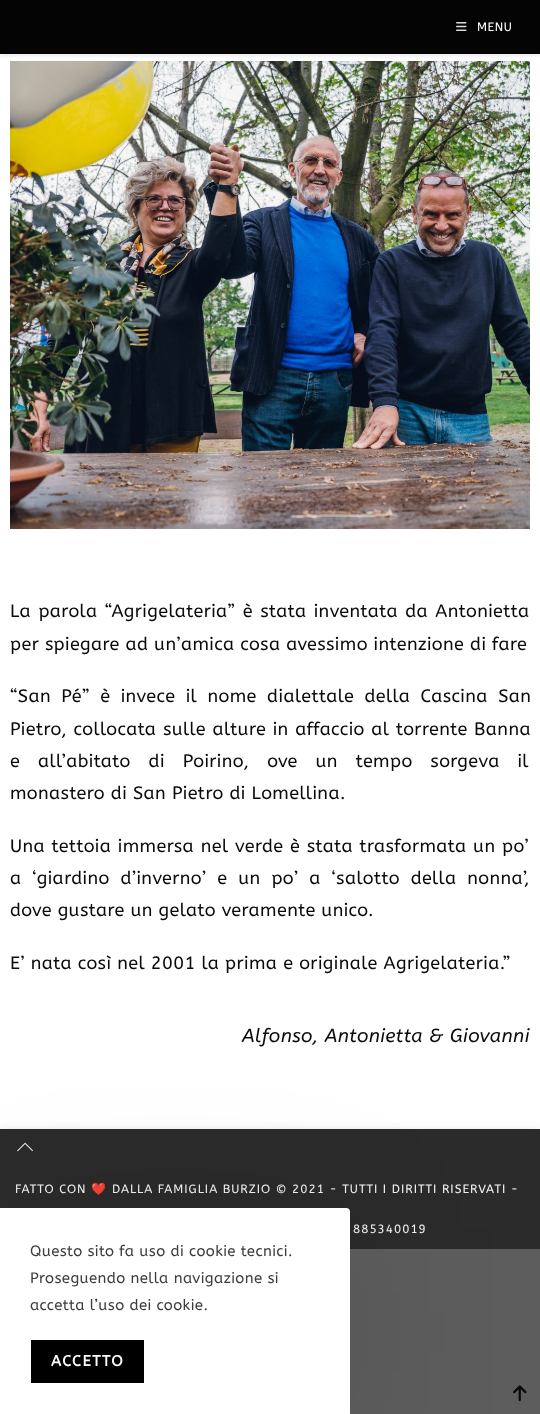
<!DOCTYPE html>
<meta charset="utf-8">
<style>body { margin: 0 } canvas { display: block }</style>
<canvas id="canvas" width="540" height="1414"></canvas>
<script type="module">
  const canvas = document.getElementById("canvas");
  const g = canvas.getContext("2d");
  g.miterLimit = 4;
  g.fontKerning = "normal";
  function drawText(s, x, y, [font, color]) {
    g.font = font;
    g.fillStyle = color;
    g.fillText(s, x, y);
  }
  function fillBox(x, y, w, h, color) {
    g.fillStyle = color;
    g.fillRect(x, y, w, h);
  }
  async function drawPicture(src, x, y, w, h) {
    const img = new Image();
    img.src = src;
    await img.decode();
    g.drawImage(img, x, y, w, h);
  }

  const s1 = ["12px ABeeZee", "#FFFFFF"];
  const s2 = ["18px ABeeZee", "#0A0A0A"];
  const s3 = ["italic 19px ABeeZee", "#0A0A0A"];
  const s4 = ["12px ABeeZee", "#F3F3F3"];
  const s5 = ["12px Noto Color Emoji", "#F3F3F3"];
  const s6 = ["15px ABeeZee", "#3C3C3C"];
  const s7 = ["bold 15px ABeeZee", "#FFFFFF"];

  fillBox(0, 0, 540, 1414, "#FFFFFF");
  fillBox(0, 0, 540, 54, "#040404");
  await drawPicture("pic2.png", 10, 61, 520, 468);
  g.save();
  g.beginPath();
  g.rect(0, 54, 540, 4);
  g.clip();
  g.fillStyle = "rgba(37, 37, 37, 0.1)";
  g.filter = "blur(2.5px)";
  g.beginPath();
  g.rect(0, 2, 540, 54);
  g.fill();
  g.filter = "none";
  g.restore();
  await drawPicture("pic1.png", 456, 22, 11, 9);
  g.letterSpacing = "0.5px";
  drawText("MENU", 477, 31, s1);
  g.letterSpacing = "0.4px";
  g.wordSpacing = "1.5px";
  drawText("La parola “Agrigelateria” è stata inventata da Antonietta", 10, 617, s2);
  g.wordSpacing = "0px";
  drawText("per spiegare ad un’amica cosa avessimo intenzione di fare", 10, 650, s2);
  g.wordSpacing = "4.5px";
  drawText("“San Pé” è invece il nome dialettale della Cascina San", 10, 702, s2);
  g.wordSpacing = "0.75px";
  drawText("Pietro, collocata sulle alture in affaccio al torrente Banna", 10, 735, s2);
  g.wordSpacing = "12px";
  drawText("e all’abitato di Poirino, ove un tempo sorgeva il", 10, 767, s2);
  g.wordSpacing = "0px";
  drawText("monastero di San Pietro di Lomellina.", 10, 799, s2);
  g.wordSpacing = "0.75px";
  drawText("Una tettoia immersa nel verde è stata trasformata un po’", 10, 852, s2);
  g.wordSpacing = "5px";
  drawText("a ‘giardino d’inverno’ e un po’ a ‘salotto della nonna’,", 10, 884, s2);
  g.wordSpacing = "0px";
  drawText("dove gustare un gelato veramente unico.", 10, 916, s2);
  drawText("E’ nata così nel 2001 la prima e originale Agrigelateria.”", 10, 969, s2);
  drawText("Alfonso, Antonietta & Giovanni", 242, 1042, s3);
  g.fillStyle = "rgba(26, 26, 26, 0.1)";
  g.filter = "blur(4px)";
  g.beginPath();
  g.rect(0, 1129, 540, 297);
  g.fill();
  g.filter = "none";
  fillBox(0, 1129, 540, 120, "#2B2B2B");
  await drawPicture("pic3.png", 17, 1142, 16, 10);
  g.letterSpacing = "1px";
  drawText("FATTO CON", 15, 1193, s4);
  drawText("❤️", 91, 1193, s5);
  drawText("DALLA FAMIGLIA BURZIO © 2021 - TUTTI I DIRITTI RISERVATI -", 112, 1193, s4);
  drawText("885340019", 353, 1233, s4);
  fillBox(350, 1249, 190, 165, "#5D5D5D");
  await drawPicture("pic4.png", 513, 1385, 14, 17);
  g.fillStyle = "rgba(0, 0, 0, 0.1)";
  g.filter = "blur(75px)";
  g.beginPath();
  g.roundRect(0, 1228, 350, 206, 4);
  g.fill();
  g.filter = "none";
  g.fillStyle = "#FFFFFF";
  g.beginPath();
  g.roundRect(0, 1208, 350, 206, [0, 4, 0, 0]);
  g.fill();
  g.letterSpacing = "0.4px";
  drawText("Questo sito fa uso di cookie tecnici.", 30, 1256, s6);
  drawText("Proseguendo nella navigazione si", 30, 1283, s6);
  drawText("accetta l’uso dei cookie.", 30, 1310, s6);
  fillBox(31, 1340, 113, 43, "#000000");
  g.letterSpacing = "1.5px";
  drawText("ACCETTO", 51, 1366, s7);
</script>
